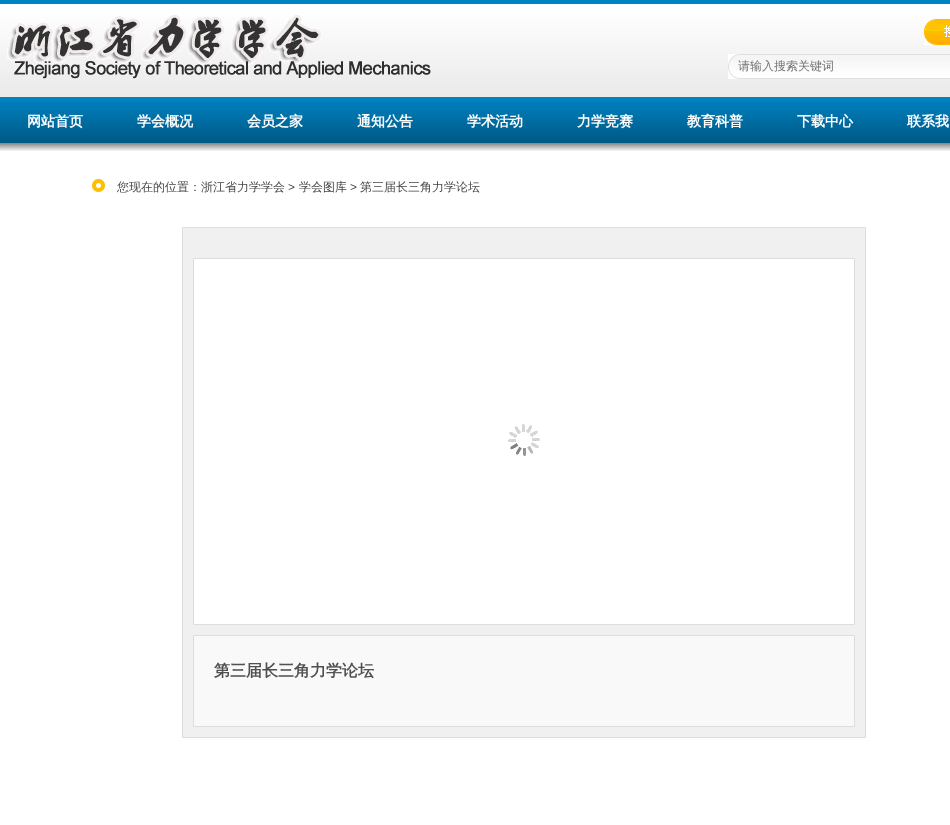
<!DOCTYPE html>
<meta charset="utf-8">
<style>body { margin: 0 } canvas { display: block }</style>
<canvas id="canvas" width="950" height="825"></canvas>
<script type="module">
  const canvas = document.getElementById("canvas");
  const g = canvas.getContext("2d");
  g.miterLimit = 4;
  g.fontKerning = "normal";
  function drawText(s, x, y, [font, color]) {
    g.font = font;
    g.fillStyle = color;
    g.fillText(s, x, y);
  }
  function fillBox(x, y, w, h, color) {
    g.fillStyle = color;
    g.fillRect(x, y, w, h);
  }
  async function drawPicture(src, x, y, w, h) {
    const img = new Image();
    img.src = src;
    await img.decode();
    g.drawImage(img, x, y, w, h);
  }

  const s1 = ["500 12px WenQuanYi Zen Hei", "#747474"];
  const s2 = ["bold 14px WenQuanYi Zen Hei", "#FFFFFF"];
  const s3 = ["500 12px WenQuanYi Zen Hei", "#464646"];
  const s4 = ["12px Liberation Sans", "#464646"];
  const s5 = ["bold 16px WenQuanYi Zen Hei", "#505050"];

  fillBox(0, 0, 950, 825, "#FFFFFF");
  await drawPicture("pic1.png", 0, 0, 950, 151);
  await drawPicture("pic2.png", 7, 15, 424, 64);
  await drawPicture("pic3.png", 924, 19, 26, 26);
  await drawPicture("pic4.png", 728, 54, 222, 25);
  drawText("请输入搜索关键词", 738, 70, s1);
  drawText("网站首页", 27, 126, s2);
  drawText("学会概况", 137, 126, s2);
  drawText("会员之家", 247, 126, s2);
  drawText("通知公告", 357, 126, s2);
  drawText("学术活动", 467, 126, s2);
  drawText("力学竞赛", 577, 126, s2);
  drawText("教育科普", 687, 126, s2);
  drawText("下载中心", 797, 126, s2);
  drawText("联系我", 907, 126, s2);
  await drawPicture("pic5.png", 92, 179, 13, 13);
  drawText("您现在的位置：浙江省力学学会", 117, 191, s3);
  drawText(">", 288, 191, s4);
  drawText("学会图库", 299, 191, s3);
  drawText(">", 350, 191, s4);
  drawText("第三届长三角力学论坛", 360, 191, s3);
  g.fillStyle = "#F0F0F0";
  g.beginPath();
  g.rect(182.5, 227.5, 683, 510);
  g.fill();
  g.strokeStyle = "#DDDDDD";
  g.stroke();
  g.fillStyle = "#FFFFFF";
  g.beginPath();
  g.rect(193.5, 258.5, 661, 366);
  g.fill();
  g.stroke();
  await drawPicture("pic6.png", 508, 424, 32, 32);
  g.fillStyle = "#F9F9F9";
  g.beginPath();
  g.rect(193.5, 635.5, 661, 91);
  g.fill();
  g.stroke();
  drawText("第三届长三角力学论坛", 214, 676, s5);
</script>
